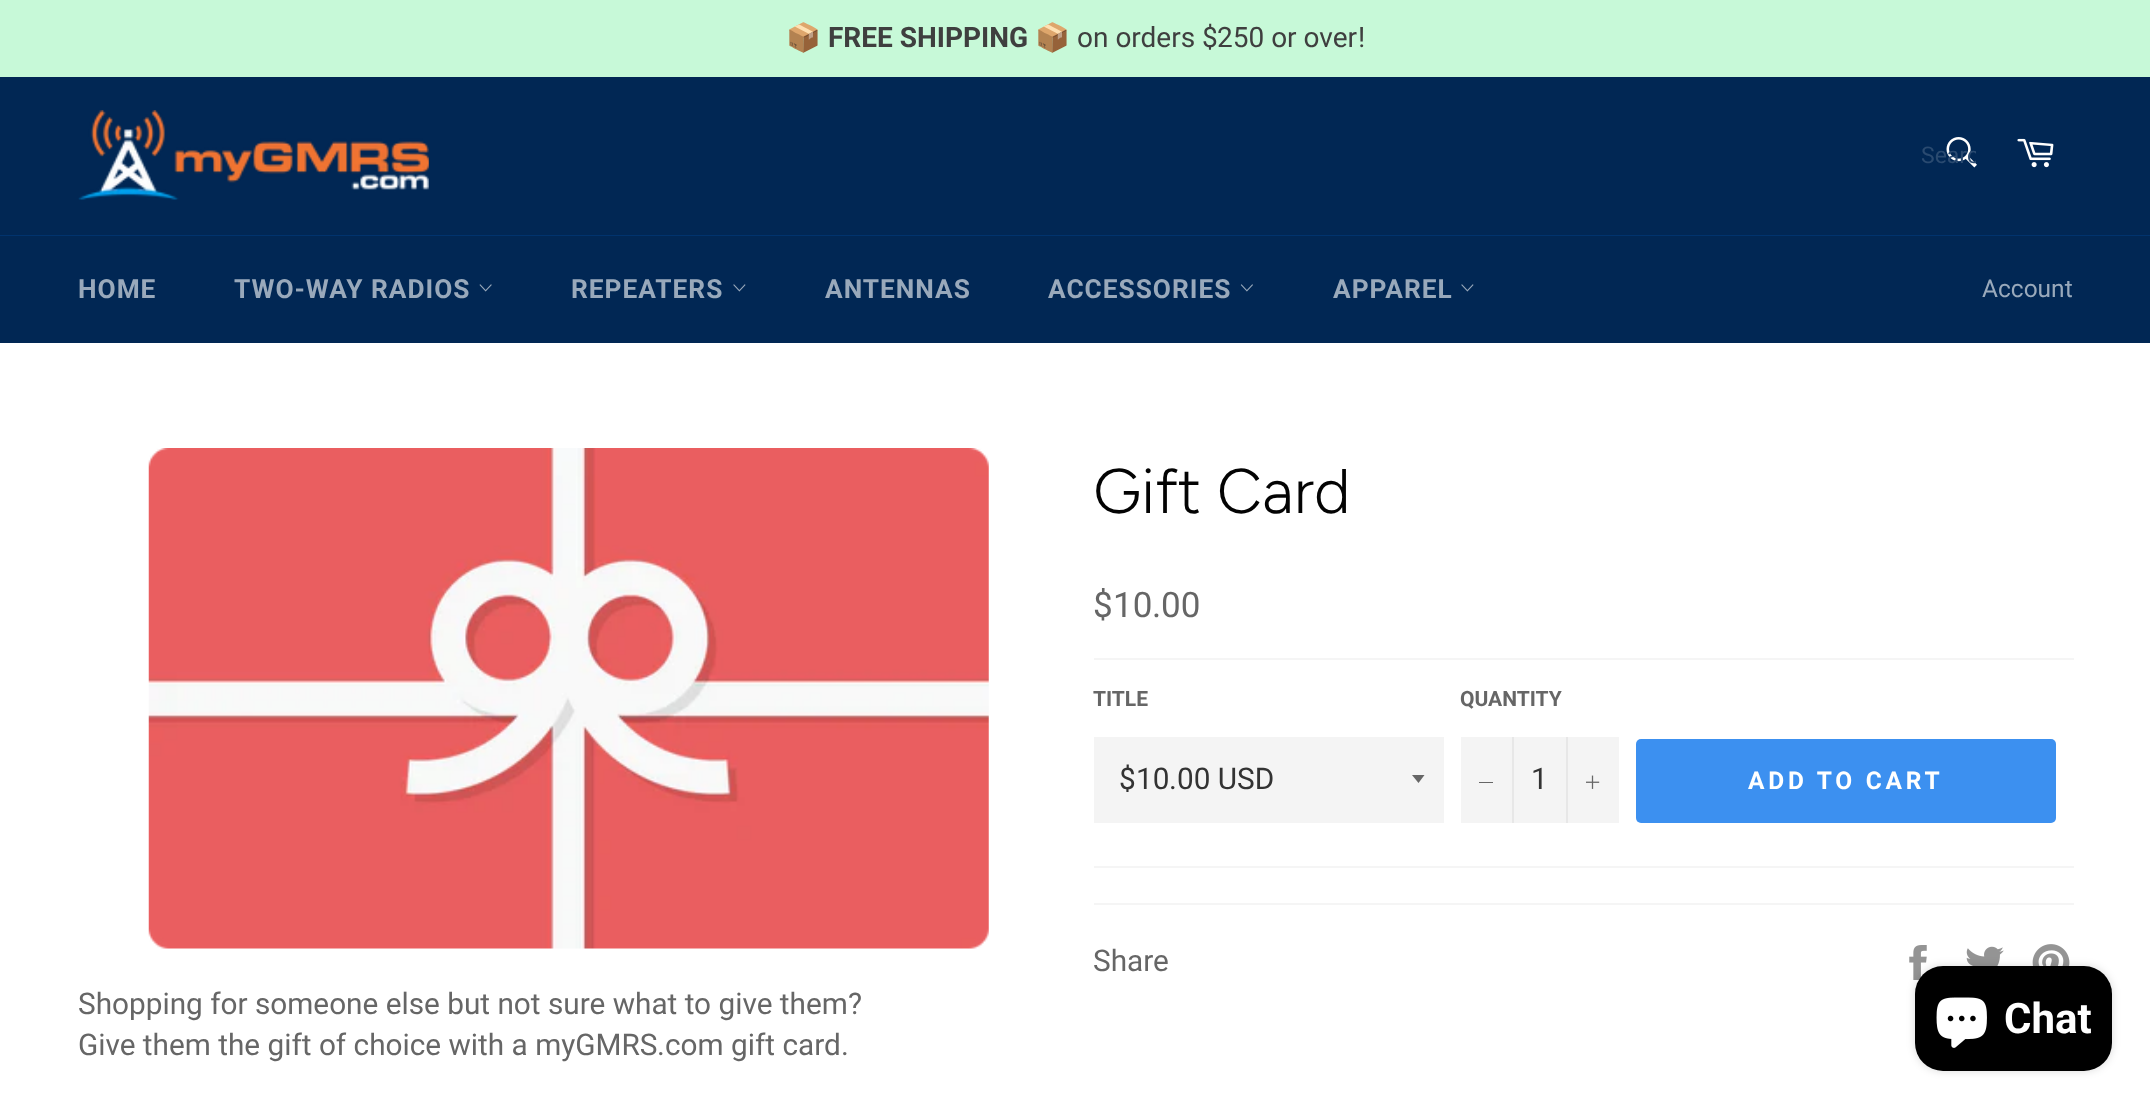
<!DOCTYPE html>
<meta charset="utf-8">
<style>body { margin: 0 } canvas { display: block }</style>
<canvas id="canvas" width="2150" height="1107"></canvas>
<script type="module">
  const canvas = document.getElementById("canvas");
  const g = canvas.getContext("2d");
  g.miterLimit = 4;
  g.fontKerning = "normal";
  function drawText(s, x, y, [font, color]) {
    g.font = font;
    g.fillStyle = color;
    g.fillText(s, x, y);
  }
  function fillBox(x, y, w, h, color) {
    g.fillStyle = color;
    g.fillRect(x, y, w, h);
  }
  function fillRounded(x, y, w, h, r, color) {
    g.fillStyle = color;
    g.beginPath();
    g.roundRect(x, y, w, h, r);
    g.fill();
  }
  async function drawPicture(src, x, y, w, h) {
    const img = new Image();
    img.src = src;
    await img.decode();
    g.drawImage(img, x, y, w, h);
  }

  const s1 = ["28px Noto Color Emoji", "#3F3F3F"];
  const s2 = ["bold 28px Roboto", "#3F3F3F"];
  const s3 = ["28px 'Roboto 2'", "#3F3F3F"];
  const s4 = ["28px Roboto", "#3F3F3F"];
  const s5 = ["23px 'Roboto 2'", "#2A4A70"];
  const s6 = ["bold 26.25px Roboto", "#99A9BB"];
  const s7 = ["24.5px 'Roboto 2'", "#99A9BB"];
  const s8 = ["300 63px Figtree", "#030303"];
  const s9 = ["35px Roboto", "#666666"];
  const s10 = ["35px 'Roboto 2'", "#666666"];
  const s11 = ["bold 21px Roboto", "#666666"];
  const s12 = ["29.75px Roboto", "#333333"];
  const s13 = ["29.75px 'Roboto 2'", "#333333"];
  const s14 = ["bold 24.5px Roboto", "#FFFFFF"];
  const s15 = ["29.75px 'Roboto 2'", "#666666"];
  const s16 = ["29.75px Roboto", "#666666"];
  const s17 = ["bold 42px Roboto", "#FFFFFF"];

  fillBox(0, 0, 2150, 1107, "#012754");
  fillBox(0, 0, 2150, 77, "#C7F9D8");
  drawText("📦", 786, 47, s1);
  drawText("FREE SHIPPING", 828, 47, s2);
  drawText("📦", 1035, 47, s1);
  drawText("on orders", 1077, 47, s3);
  drawText("$", 1202, 47, s4);
  drawText("250 or over", 1217, 47, s3);
  drawText("!", 1358, 47, s4);
  await drawPicture("pic1.png", 78, 110, 351, 90);
  await drawPicture("pic2.png", 1946, 137, 31, 31);
  g.save();
  g.beginPath();
  g.rect(1920, 142, 56, 26);
  g.clip();
  drawText("Searc", 1921, 163, s5);
  g.restore();
  await drawPicture("pic3.png", 2017, 138, 37, 30);
  fillBox(0, 235, 2150, 1, "#01336D");
  g.letterSpacing = "1px";
  drawText("HOME", 78, 298, s6);
  drawText("TWO-WAY RADIOS", 234, 298, s6);
  await drawPicture("pic4.png", 479, 284, 13, 8);
  drawText("REPEATERS", 571, 298, s6);
  await drawPicture("pic5.png", 733, 284, 13, 8);
  drawText("ANTENNAS", 825, 298, s6);
  drawText("ACCESSORIES", 1048, 298, s6);
  await drawPicture("pic6.png", 1240, 284, 13, 8);
  drawText("APPAREL", 1333, 298, s6);
  await drawPicture("pic5.png", 1461, 284, 13, 8);
  g.letterSpacing = "0px";
  drawText("Account", 1982, 297, s7);
  fillBox(0, 343, 2150, 764, "#FFFFFF");
  await drawPicture("pic7.png", 148, 448, 841, 501);
  drawText("Gift Card", 1093, 513, s8);
  drawText("$", 1093, 617, s9);
  drawText("10", 1113, 617, s10);
  drawText(".", 1152, 617, s9);
  drawText("00", 1161, 617, s10);
  fillBox(1094, 658, 980, 2, "#F5F5F5");
  drawText("TITLE", 1093, 706, s11);
  fillBox(1094, 737, 350, 86, "#F4F4F4");
  g.fillStyle = "#666666";
  g.beginPath();
  g.moveTo(1412, 775);
  g.lineTo(1418.5, 783);
  g.lineTo(1424.5, 775);
  g.closePath();
  g.fill();
  drawText("$", 1119, 789, s12);
  drawText("10", 1136, 789, s13);
  drawText(".", 1169, 789, s12);
  drawText("00 USD", 1177, 789, s13);
  drawText("QUANTITY", 1460, 706, s11);
  fillBox(1461, 737, 158, 86, "#F4F4F4");
  fillBox(1512, 737, 2, 86, "#E7E7E7");
  fillBox(1479, 782, 14, 1, "#666666");
  drawText("1", 1531, 789, s13);
  fillBox(1566, 737, 2, 86, "#E7E7E7");
  await drawPicture("pic8.png", 1586, 775, 14, 14);
  fillRounded(1636, 739, 420, 84, 5, "#3C90F0");
  g.letterSpacing = "3.75px";
  drawText("ADD TO CART", 1748, 789, s14);
  fillBox(1094, 866, 980, 2, "#F5F5F5");
  fillBox(1094, 903, 980, 2, "#F5F5F5");
  g.letterSpacing = "0px";
  drawText("Share", 1093, 971, s15);
  await drawPicture("pic9.png", 1909, 945, 18, 35);
  await drawPicture("pic10.png", 1966, 946, 38, 20);
  await drawPicture("pic11.png", 2032, 944, 38, 22);
  drawText("Shopping for someone else but not sure what to give them", 78, 1014, s15);
  drawText("?", 848, 1014, s16);
  drawText("Give them the gift of choice with a myGMRS", 78, 1055, s15);
  drawText(".", 657, 1055, s16);
  drawText("com gift card", 665, 1055, s15);
  drawText(".", 841, 1055, s16);
  g.fillStyle = "rgba(0, 0, 0, 0.15)";
  g.filter = "blur(4.5px)";
  g.beginPath();
  g.roundRect(1915, 966, 197, 105, 28);
  g.fill();
  g.filter = "none";
  fillRounded(1915, 966, 197, 105, 28, "#000000");
  await drawPicture("pic12.png", 1936, 997, 51, 51);
  drawText("Chat", 2004, 1033, s17);
</script>
